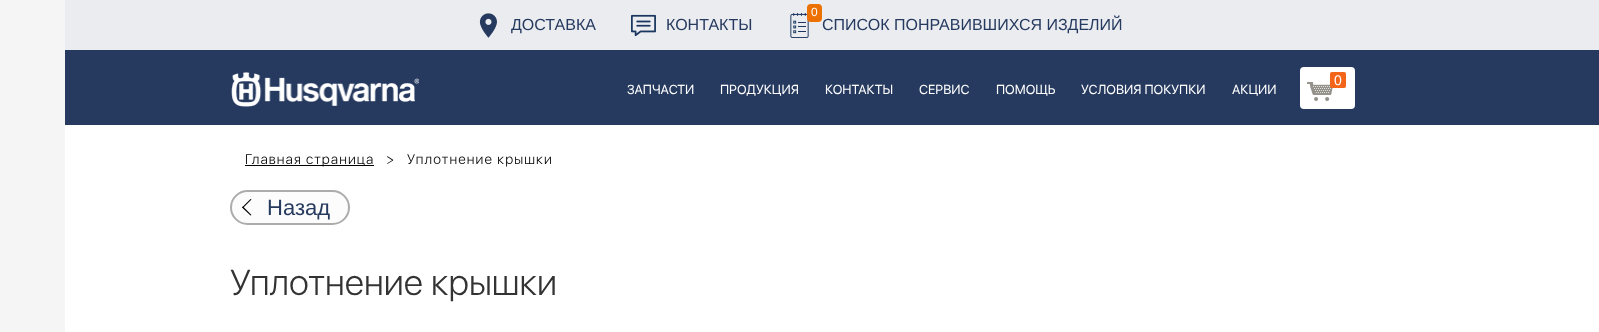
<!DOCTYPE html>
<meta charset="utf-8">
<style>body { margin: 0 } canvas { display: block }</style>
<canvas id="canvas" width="1599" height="332"></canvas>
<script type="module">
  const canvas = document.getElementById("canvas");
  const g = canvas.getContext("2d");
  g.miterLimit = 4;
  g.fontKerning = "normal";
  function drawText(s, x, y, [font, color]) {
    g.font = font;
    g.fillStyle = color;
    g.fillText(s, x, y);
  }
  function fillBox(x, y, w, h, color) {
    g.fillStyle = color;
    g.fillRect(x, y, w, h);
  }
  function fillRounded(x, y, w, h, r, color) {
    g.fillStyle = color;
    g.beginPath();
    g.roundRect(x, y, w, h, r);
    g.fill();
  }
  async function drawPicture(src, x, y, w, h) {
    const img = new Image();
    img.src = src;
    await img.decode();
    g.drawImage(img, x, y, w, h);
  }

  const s1 = ["16px Liberation Sans", "#263A5F"];
  const s2 = ["12px Liberation Sans", "#FFFFFF"];
  const s3 = ["14px Liberation Sans", "#FFFFFF"];
  const s4 = ["13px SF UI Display", "#FFFFFF"];
  const s5 = ["300 14px SF UI Display", "#000000"];
  const s6 = ["22px Liberation Sans", "#263A5F"];
  const s7 = ["300 36px SF UI Display", "#333333"];

  fillBox(0, 0, 1599, 332, "#FFFFFF");
  fillBox(0, 0, 65, 332, "#F5F5F5");
  fillBox(65, 0, 1534, 50, "#EAECF0");
  await drawPicture("pic1.png", 479, 13, 18, 25);
  drawText("ДОСТАВКА", 511, 30, s1);
  await drawPicture("pic2.png", 631, 14, 25, 23);
  drawText("КОНТАКТЫ", 666, 30, s1);
  await drawPicture("pic3.png", 790, 13, 19, 25);
  fillRounded(807, 4, 15, 18, 4, "#ED7102");
  drawText("0", 811, 16, s2);
  drawText("СПИСОК ПОНРАВИВШИХСЯ ИЗДЕЛИЙ", 822, 30, s1);
  fillBox(65, 50, 1534, 75, "#263A5F");
  await drawPicture("pic4.png", 231, 72, 188, 35);
  fillRounded(1300, 67, 55, 42, 4, "#FFFFFF");
  await drawPicture("pic5.png", 1307, 82, 26, 19);
  fillRounded(1330, 72, 16, 16, 2, "#F4651A");
  drawText("0", 1334, 85, s3);
  drawText("ЗАПЧАСТИ", 627, 94, s4);
  drawText("ПРОДУКЦИЯ", 720, 94, s4);
  drawText("КОНТАКТЫ", 825, 94, s4);
  drawText("СЕРВИС", 919, 94, s4);
  drawText("ПОМОЩЬ", 996, 94, s4);
  drawText("УСЛОВИЯ ПОКУПКИ", 1081, 94, s4);
  drawText("АКЦИИ", 1232, 94, s4);
  fillBox(245, 165, 129, 1, "#000000");
  g.letterSpacing = "1.1px";
  drawText("Главная страница", 245, 164, s5);
  drawText(">", 386, 164, s5);
  drawText("Уплотнение крышки", 407, 164, s5);
  g.fillStyle = "#FCFCFC";
  g.beginPath();
  g.roundRect(231, 191, 118, 33, 16.5);
  g.fill();
  g.strokeStyle = "#ACACAC";
  g.lineWidth = 2;
  g.stroke();
  g.fillStyle = "#000000";
  g.beginPath();
  g.moveTo(242, 207.5);
  g.lineTo(250.5, 199);
  g.lineTo(251.5, 199.5);
  g.lineTo(243, 208);
  g.closePath();
  g.fill();
  g.beginPath();
  g.moveTo(242, 207.5);
  g.lineTo(243, 206.5);
  g.lineTo(251.5, 215);
  g.lineTo(250.5, 215.5);
  g.closePath();
  g.fill();
  g.letterSpacing = "0px";
  drawText("Назад", 267, 215, s6);
  drawText("Уплотнение крышки", 230, 295, s7);
</script>
